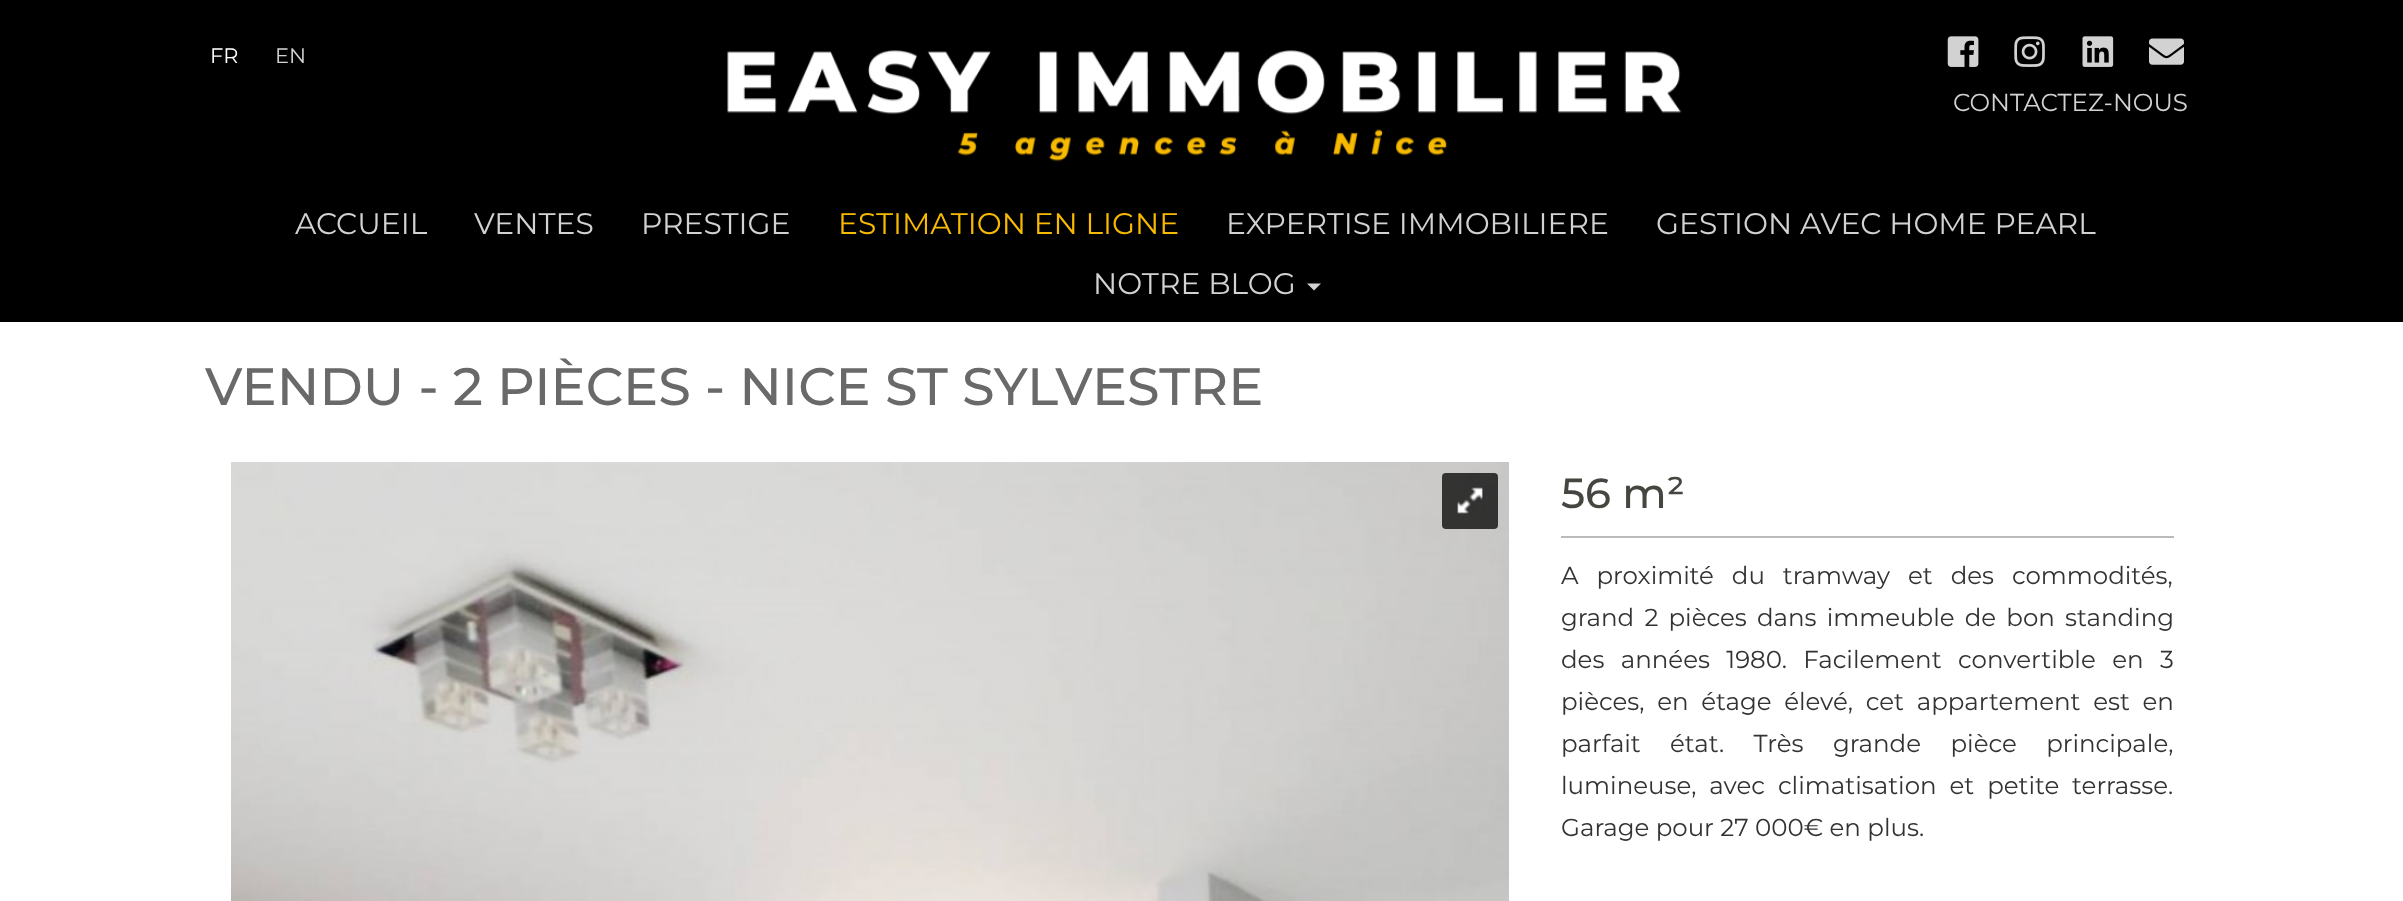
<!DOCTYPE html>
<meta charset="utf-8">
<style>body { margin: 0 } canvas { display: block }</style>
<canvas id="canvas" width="2403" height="901"></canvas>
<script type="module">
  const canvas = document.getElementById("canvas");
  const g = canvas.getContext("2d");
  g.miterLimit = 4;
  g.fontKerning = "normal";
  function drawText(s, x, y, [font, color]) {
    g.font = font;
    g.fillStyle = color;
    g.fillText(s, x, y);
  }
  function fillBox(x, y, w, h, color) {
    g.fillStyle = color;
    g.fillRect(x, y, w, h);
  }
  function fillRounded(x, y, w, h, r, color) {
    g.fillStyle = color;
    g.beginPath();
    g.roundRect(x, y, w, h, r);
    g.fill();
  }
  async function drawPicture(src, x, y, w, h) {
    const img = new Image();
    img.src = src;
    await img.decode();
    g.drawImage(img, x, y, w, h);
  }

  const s1 = ["21px Montserrat", "#FFFFFF"];
  const s2 = ["21px Montserrat", "#D2D2D2"];
  const s3 = ["24.5px Montserrat", "#D2D2D2"];
  const s4 = ["29.75px Montserrat", "#D2D2D2"];
  const s5 = ["29.75px Montserrat", "#F8BA00"];
  const s6 = ["500 52.5px Montserrat", "#696969"];
  const s7 = ["500 42px Montserrat", "#464640"];
  const s8 = ["24.5px Montserrat", "#333333"];

  fillBox(0, 0, 2403, 901, "#FFFFFF");
  fillBox(0, 0, 2403, 322, "#000000");
  drawText("FR", 210, 63, s1);
  drawText("EN", 275, 63, s2);
  await drawPicture("pic1.png", 727, 50, 955, 112);
  await drawPicture("pic2.png", 1947, 36, 32, 31);
  await drawPicture("pic3.png", 2014, 36, 31, 31);
  await drawPicture("pic4.png", 2082, 36, 32, 31);
  await drawPicture("pic5.png", 2149, 38, 35, 27);
  drawText("CONTACTEZ-NOUS", 1953, 111, s3);
  drawText("ACCUEIL", 295, 234, s4);
  drawText("VENTES", 474, 234, s4);
  drawText("PRESTIGE", 641, 234, s4);
  drawText("ESTIMATION EN LIGNE", 838, 234, s5);
  drawText("EXPERTISE IMMOBILIERE", 1226, 234, s4);
  drawText("GESTION AVEC HOME PEARL", 1656, 234, s4);
  drawText("NOTRE BLOG", 1093, 294, s4);
  g.beginPath();
  g.moveTo(1307, 283.5);
  g.lineTo(1321, 283.5);
  g.lineTo(1314, 290.5);
  g.closePath();
  g.fill();
  drawText("VENDU - 2 PIÈCES - NICE ST SYLVESTRE", 205, 405, s6);
  await drawPicture("pic6.png", 231, 462, 1278, 439);
  fillRounded(1442, 473, 56, 56, 4, "rgba(0, 0, 0, 0.75)");
  await drawPicture("pic7.png", 1457, 487, 27, 27);
  fillBox(1561, 536, 613, 2, "#BBBBBB");
  drawText("56 m²", 1561, 508, s7);
  g.wordSpacing = "11.5px";
  drawText("A proximité du tramway et des commodités,", 1561, 584, s8);
  g.wordSpacing = "3.75px";
  drawText("grand 2 pièces dans immeuble de bon standing", 1561, 626, s8);
  g.wordSpacing = "10px";
  drawText("des années 1980. Facilement convertible en 3", 1561, 668, s8);
  g.wordSpacing = "6.25px";
  drawText("pièces, en étage élevé, cet appartement est en", 1561, 710, s8);
  g.wordSpacing = "23px";
  drawText("parfait état. Très grande pièce principale,", 1561, 752, s8);
  g.wordSpacing = "6.5px";
  drawText("lumineuse, avec climatisation et petite terrasse.", 1561, 794, s8);
  g.wordSpacing = "0px";
  drawText("Garage pour 27 000€ en plus.", 1561, 836, s8);
</script>
